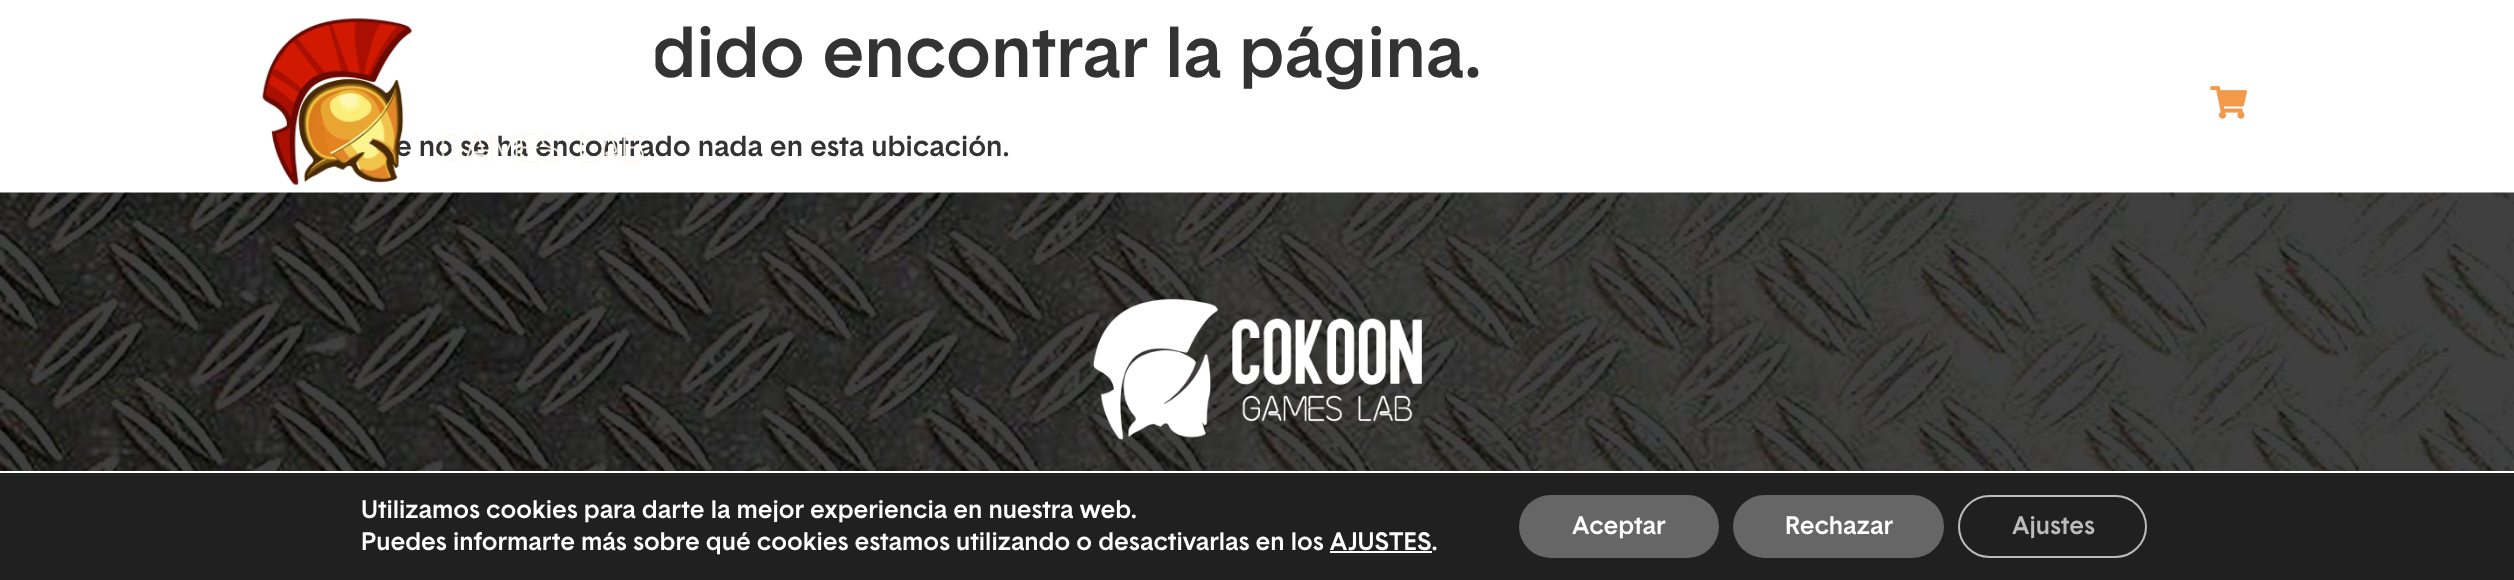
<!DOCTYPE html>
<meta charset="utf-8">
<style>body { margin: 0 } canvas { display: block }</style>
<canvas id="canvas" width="2514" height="580"></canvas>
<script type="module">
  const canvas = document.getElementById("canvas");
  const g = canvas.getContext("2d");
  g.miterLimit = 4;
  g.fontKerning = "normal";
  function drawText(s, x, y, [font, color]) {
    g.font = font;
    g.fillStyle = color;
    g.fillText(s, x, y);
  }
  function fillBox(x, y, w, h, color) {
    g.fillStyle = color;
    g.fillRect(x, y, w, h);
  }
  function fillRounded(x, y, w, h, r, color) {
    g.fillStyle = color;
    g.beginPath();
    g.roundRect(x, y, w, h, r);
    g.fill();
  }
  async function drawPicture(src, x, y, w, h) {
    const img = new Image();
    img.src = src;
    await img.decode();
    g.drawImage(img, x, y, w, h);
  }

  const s1 = ["500 70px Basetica", "#333333"];
  const s2 = ["500 28px Basetica", "#333333"];
  const s3 = ["500 24.5px Basetica", "#FFFFFF"];
  const s4 = ["500 24.5px Basetica", "#BCBCBC"];

  fillBox(0, 0, 2514, 580, "#FFFFFF");
  drawText("dido encontrar la página.", 651, 77, s1);
  drawText("e no se ha encontrado nada en esta ubicación.", 395, 156, s2);
  await drawPicture("pic1.png", 262, 18, 394, 168);
  await drawPicture("pic2.png", 2210, 86, 37, 33);
  await drawPicture("pic3.png", 0, 192, 2514, 279);
  await drawPicture("pic4.png", 1093, 299, 329, 141);
  fillBox(0, 473, 2514, 107, "#202020");
  drawText("Utilizamos cookies para darte la mejor experiencia en nuestra web.", 361, 518, s3);
  drawText("Puedes informarte más sobre qué cookies estamos utilizando o desactivarlas en los AJUSTES.", 361, 550, s3);
  fillBox(1330, 551, 102, 2, "#FFFFFF");
  fillRounded(1519, 495, 200, 63, 31.5, "#666666");
  drawText("Aceptar", 1572, 534, s3);
  fillRounded(1733, 495, 211, 63, 31.5, "#666666");
  drawText("Rechazar", 1785, 534, s3);
  g.beginPath();
  g.roundRect(1959, 496, 187, 61, 30.5);
  g.strokeStyle = "#BCBCBC";
  g.lineWidth = 2;
  g.stroke();
  drawText("Ajustes", 2012, 534, s4);
</script>
